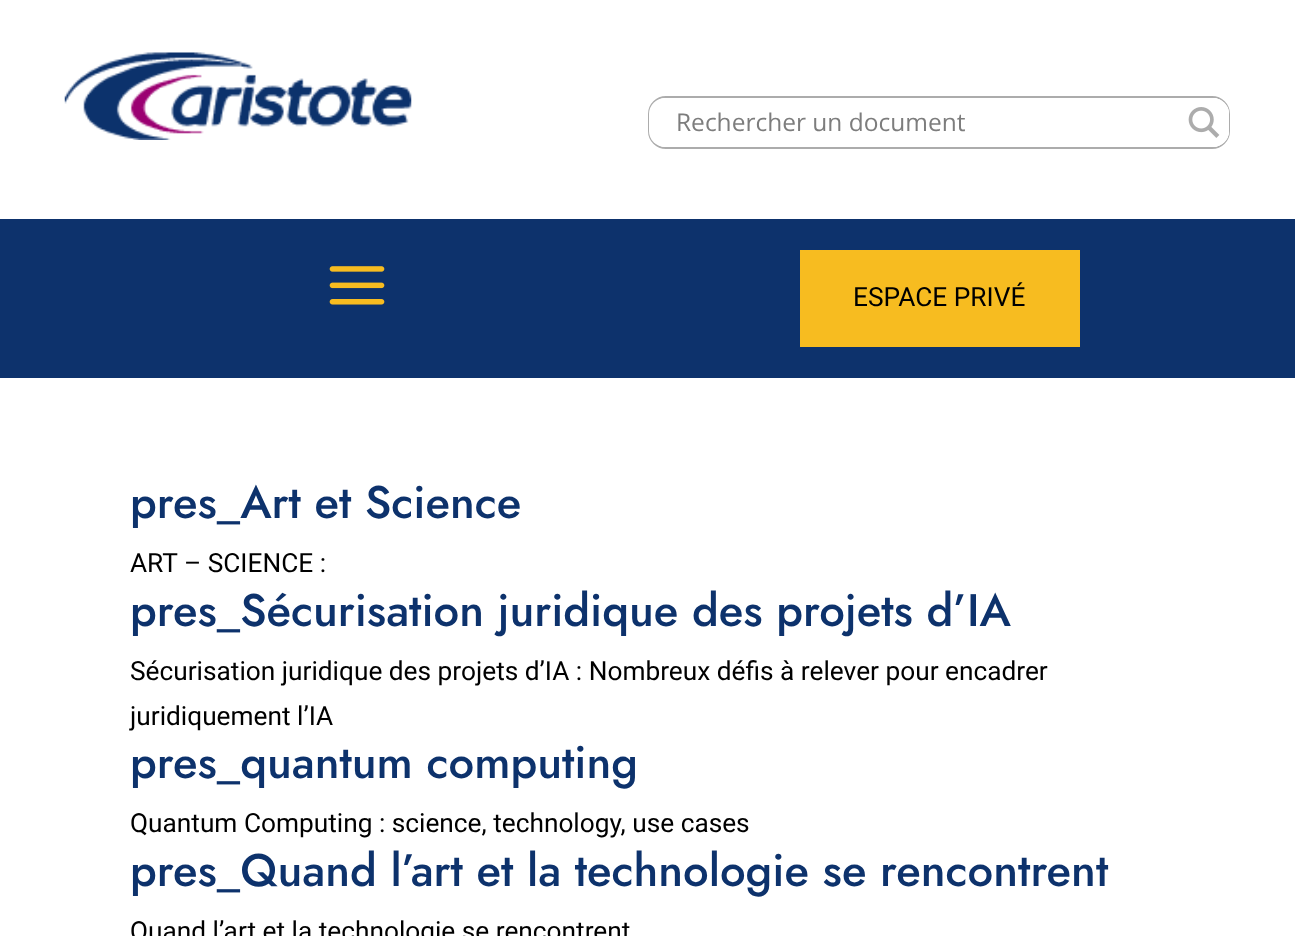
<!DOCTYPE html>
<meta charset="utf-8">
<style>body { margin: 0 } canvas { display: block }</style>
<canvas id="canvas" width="1295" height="936"></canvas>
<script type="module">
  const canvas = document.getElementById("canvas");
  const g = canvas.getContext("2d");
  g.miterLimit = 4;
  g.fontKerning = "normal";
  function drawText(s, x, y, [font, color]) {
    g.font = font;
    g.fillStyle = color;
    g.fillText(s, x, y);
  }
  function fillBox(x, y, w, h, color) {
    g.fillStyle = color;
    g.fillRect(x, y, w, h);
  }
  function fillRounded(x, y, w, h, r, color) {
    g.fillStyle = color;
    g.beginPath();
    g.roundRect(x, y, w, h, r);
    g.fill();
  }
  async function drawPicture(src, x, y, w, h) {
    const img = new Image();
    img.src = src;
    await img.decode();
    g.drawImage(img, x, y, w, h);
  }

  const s1 = ["24.5px Open Sans", "#7D7D7D"];
  const s2 = ["26.25px Roboto", "#000000"];
  const s3 = ["500 45.5px Jost", "#0D326C"];

  fillBox(0, 0, 1295, 936, "#FFFFFF");
  await drawPicture("pic1.png", 64, 52, 348, 88);
  g.beginPath();
  g.roundRect(649, 97, 580, 51, 17);
  g.strokeStyle = "#ACACAC";
  g.lineWidth = 2;
  g.stroke();
  fillRounded(649, 98, 580, 49, 16, "#FFFFFF");
  drawText("Rechercher un document", 676, 131, s1);
  g.save();
  g.beginPath();
  g.rect(1180, 98, 49, 49);
  g.clip();
  g.fillStyle = "rgba(255, 255, 255, 0.64)";
  g.beginPath();
  g.moveTo(1178, 100);
  g.lineTo(1178, 147);
  g.lineTo(1006, 147);
  g.lineTo(1006, 98);
  g.lineTo(1213, 98);
  g.bezierCurveTo(1216, 98, 1218, 99, 1221, 100);
  g.closePath();
  g.moveTo(1227, 139);
  g.bezierCurveTo(1230, 134, 1229, 128, 1229, 122);
  g.bezierCurveTo(1229, 117, 1230, 111, 1227, 106);
  g.closePath();
  g.fill("evenodd");
  g.restore();
  g.fillStyle = "#FFFFFF";
  g.beginPath();
  g.roundRect(1180, 98, 49, 49, [0, 16, 16, 0]);
  g.fill();
  await drawPicture("pic2.png", 1188, 107, 32, 31);
  fillBox(0, 219, 1295, 159, "#0D326C");
  await drawPicture("pic3.png", 329, 266, 56, 39);
  fillBox(800, 250, 280, 97, "#F7BC20");
  drawText("ESPACE PRIVÉ", 853, 306, s2);
  drawText("pres_Art et Science", 130, 518, s3);
  drawText("ART – SCIENCE :", 130, 572, s2);
  drawText("pres_Sécurisation juridique des projets d’IA", 130, 626, s3);
  drawText("Sécurisation juridique des projets d’IA : Nombreux défis à relever pour encadrer", 130, 680, s2);
  drawText("juridiquement l’IA", 130, 725, s2);
  drawText("pres_quantum computing", 130, 778, s3);
  drawText("Quantum Computing : science, technology, use cases", 130, 832, s2);
  drawText("pres_Quand l’art et la technologie se rencontrent", 130, 886, s3);
  drawText("Quand l’art et la technologie se rencontrent", 130, 940, s2);
</script>
